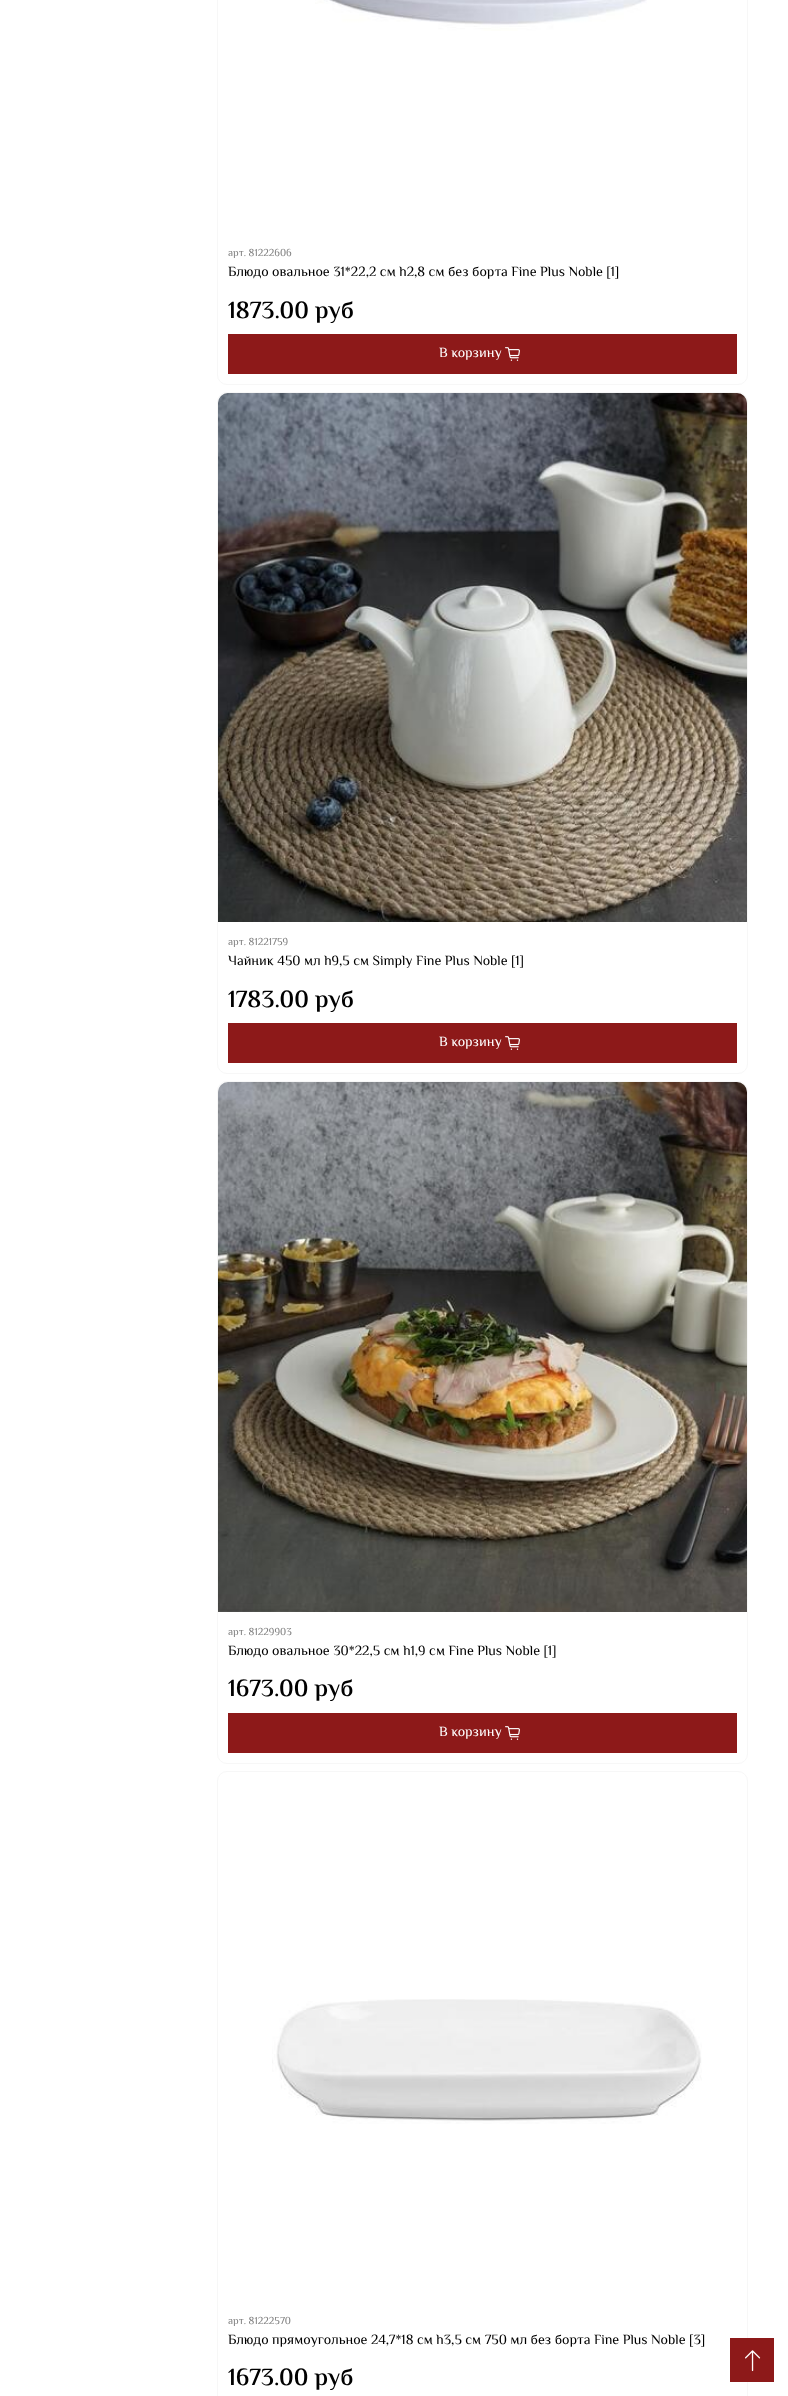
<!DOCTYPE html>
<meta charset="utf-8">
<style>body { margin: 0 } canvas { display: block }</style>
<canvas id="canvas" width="788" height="2396"></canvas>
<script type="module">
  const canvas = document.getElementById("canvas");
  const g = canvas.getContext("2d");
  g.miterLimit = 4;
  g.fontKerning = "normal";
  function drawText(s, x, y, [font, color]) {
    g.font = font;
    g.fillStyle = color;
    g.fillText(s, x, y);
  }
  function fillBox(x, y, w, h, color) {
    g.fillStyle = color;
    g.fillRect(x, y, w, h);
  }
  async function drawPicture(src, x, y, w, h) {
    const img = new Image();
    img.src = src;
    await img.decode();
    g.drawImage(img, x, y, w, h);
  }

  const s1 = ["10.5px El Messiri", "#808080"];
  const s2 = ["14px El Messiri", "#000000"];
  const s3 = ["600 24.5px El Messiri", "#000000"];
  const s4 = ["14px El Messiri", "#FFFFFF"];

  fillBox(0, 0, 788, 2396, "#FFFFFF");
  g.beginPath();
  g.roundRect(217.5, -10.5, 530, 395, 9.5);
  g.strokeStyle = "#F7F7F7";
  g.stroke();
  await drawPicture("pic1.png", 315, 0, 332, 31);
  drawText("арт. 81222606", 228, 256, s1);
  drawText("Блюдо овальное 31*22,2 см h2,8 см без борта Fine Plus Noble [1]", 228, 276, s2);
  drawText("1873.00 руб", 228, 318, s3);
  fillBox(228, 334, 509, 40, "#8D1919");
  drawText("В корзину", 439, 357, s4);
  await drawPicture("pic2.png", 505, 347, 15, 14);
  g.beginPath();
  g.roundRect(217.5, 392.5, 530, 681, 9.5);
  g.stroke();
  await drawPicture("pic3.png", 218, 393, 529, 529);
  drawText("арт. 81221759", 228, 945, s1);
  drawText("Чайник 450 мл h9,5 см Simply Fine Plus Noble [1]", 228, 965, s2);
  drawText("1783.00 руб", 228, 1007, s3);
  fillBox(228, 1023, 509, 40, "#8D1919");
  drawText("В корзину", 439, 1046, s4);
  await drawPicture("pic2.png", 505, 1036, 15, 14);
  g.beginPath();
  g.roundRect(217.5, 1081.5, 530, 682, 9.5);
  g.stroke();
  await drawPicture("pic4.png", 218, 1082, 529, 530);
  drawText("арт. 81229903", 228, 1635, s1);
  drawText("Блюдо овальное 30*22,5 см h1,9 см Fine Plus Noble [1]", 228, 1655, s2);
  drawText("1673.00 руб", 228, 1696, s3);
  fillBox(228, 1713, 509, 40, "#8D1919");
  drawText("В корзину", 439, 1736, s4);
  await drawPicture("pic2.png", 505, 1726, 15, 14);
  g.beginPath();
  g.roundRect(217.5, 1771.5, 530, 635, 9.5);
  g.stroke();
  await drawPicture("pic5.png", 272, 1999, 430, 125);
  drawText("арт. 81222570", 228, 2324, s1);
  drawText("Блюдо прямоугольное 24,7*18 см h3,5 см 750 мл без борта Fine Plus Noble [3]", 228, 2344, s2);
  drawText("1673.00 руб", 228, 2385, s3);
  fillBox(730, 2338, 44, 44, "#8D1919");
  await drawPicture("pic6.png", 745, 2350, 16, 22);
</script>
